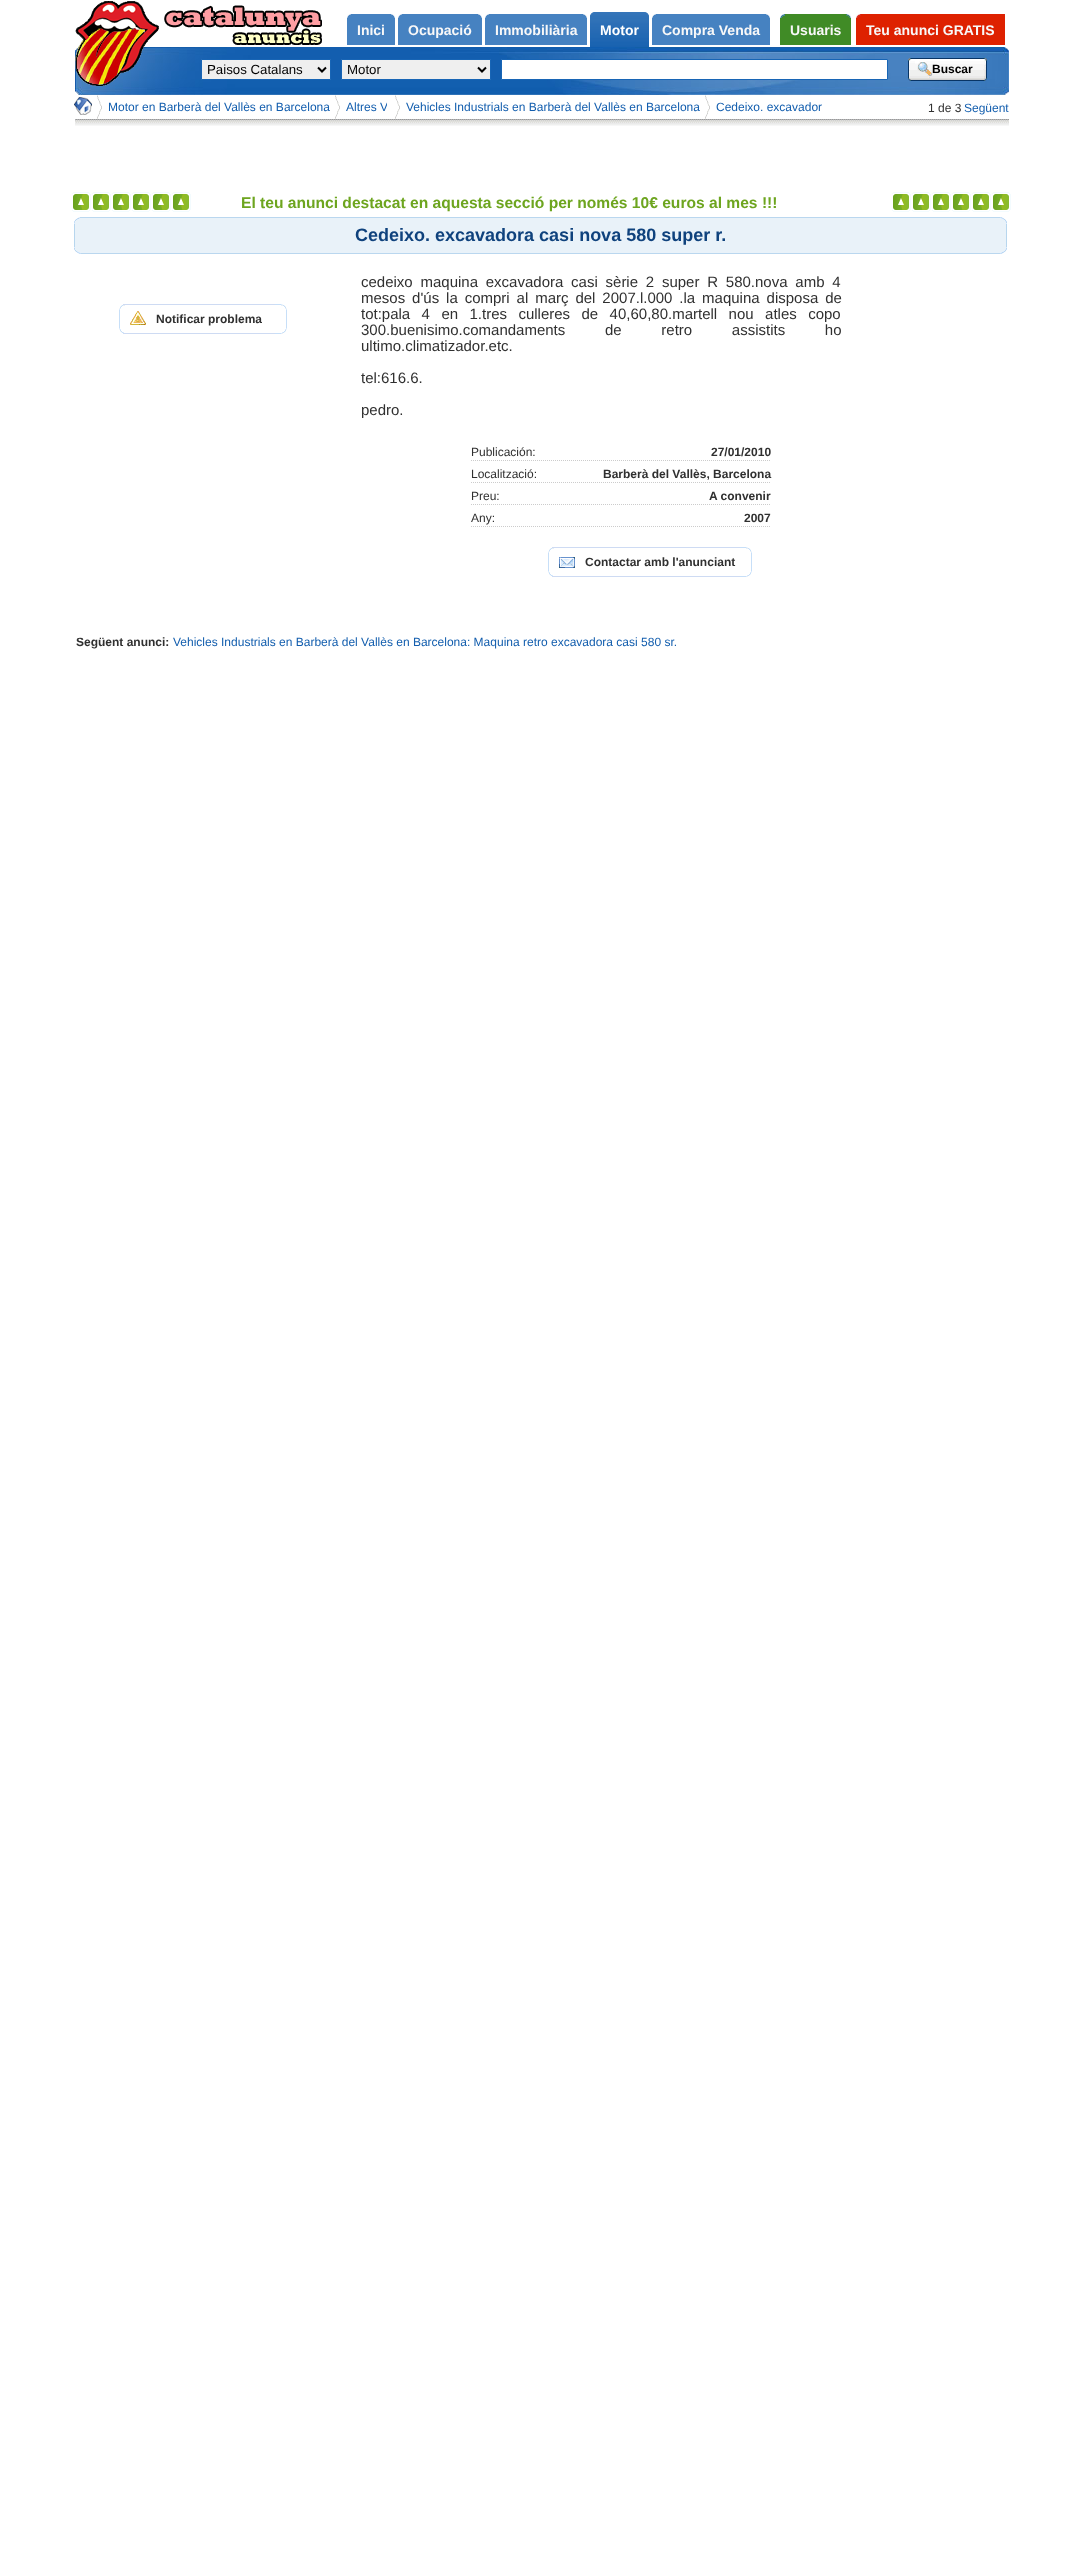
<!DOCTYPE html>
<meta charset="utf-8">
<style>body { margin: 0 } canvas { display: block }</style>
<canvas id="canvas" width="1082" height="2552"></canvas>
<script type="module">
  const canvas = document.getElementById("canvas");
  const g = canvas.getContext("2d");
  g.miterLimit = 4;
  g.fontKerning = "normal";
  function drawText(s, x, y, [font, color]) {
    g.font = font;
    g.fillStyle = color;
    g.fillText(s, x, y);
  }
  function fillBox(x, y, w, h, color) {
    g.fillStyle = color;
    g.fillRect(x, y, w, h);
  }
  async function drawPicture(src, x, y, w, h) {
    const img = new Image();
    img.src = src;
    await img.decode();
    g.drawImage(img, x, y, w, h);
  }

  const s1 = ["bold 14px Liberation Sans", "#F8F8F8"];
  const s2 = ["bold 14px Liberation Sans", "#FFFFFF"];
  const s3 = ["13.25px Liberation Sans", "#000000"];
  const s4 = ["bold 12px Liberation Sans", "#000000"];
  const s5 = ["bold 15.6px Liberation Sans", "#6DA51F"];
  const s6 = ["12px Liberation Sans", "#135EAE"];
  const s7 = ["12px Liberation Sans", "#303030"];
  const s8 = ["bold 18px Liberation Sans", "#0F427D"];
  const s9 = ["bold 12px Liberation Sans", "#303030"];
  const s10 = ["15px Liberation Sans", "#303030"];

  fillBox(0, 0, 1082, 2552, "#FFFFFF");
  fillBox(347, 14, 48, 31, "#4682C1");
  await drawPicture("pic1.png", 347, 14, 4, 4);
  await drawPicture("pic2.png", 391, 14, 4, 4);
  drawText("Inici", 357, 35, s1);
  fillBox(398, 14, 84, 31, "#4682C1");
  await drawPicture("pic3.png", 398, 14, 5, 4);
  await drawPicture("pic2.png", 478, 14, 4, 4);
  drawText("Ocupació", 408, 35, s1);
  fillBox(485, 14, 102, 31, "#4682C1");
  await drawPicture("pic1.png", 485, 14, 4, 4);
  await drawPicture("pic4.png", 583, 14, 4, 4);
  drawText("Immobiliària", 495, 35, s1);
  await drawPicture("pic5.png", 590, 12, 59, 35);
  await drawPicture("pic6.png", 590, 12, 4, 4);
  drawText("Motor", 600, 35, s2);
  fillBox(652, 14, 118, 31, "#4682C1");
  await drawPicture("pic1.png", 652, 14, 4, 4);
  await drawPicture("pic4.png", 766, 14, 4, 4);
  drawText("Compra Venda", 662, 35, s1);
  fillBox(780, 14, 71, 31, "#408B26");
  await drawPicture("pic7.png", 780, 14, 5, 4);
  await drawPicture("pic8.png", 846, 14, 5, 4);
  drawText("Usuaris", 790, 35, s1);
  fillBox(856, 14, 149, 31, "#DE2100");
  await drawPicture("pic9.png", 856, 14, 5, 4);
  fillBox(1004, 14, 1, 2, "#DB240E");
  drawText("Teu anunci GRATIS", 866, 35, s1);
  await drawPicture("pic10.png", 75, 47, 934, 48);
  await drawPicture("pic11.png", 75, 1, 84, 85);
  await drawPicture("pic12.png", 164, 5, 158, 40);
  g.fillStyle = "#EFEFEF";
  g.beginPath();
  g.rect(201.5, 59.5, 129, 20);
  g.fill();
  g.strokeStyle = "#1865B5";
  g.stroke();
  g.beginPath();
  g.moveTo(318, 67.5);
  g.lineTo(322, 71.5);
  g.lineTo(326, 67.5);
  g.strokeStyle = "#000000";
  g.lineWidth = 2;
  g.stroke();
  drawText("Paisos Catalans", 207, 74, s3);
  g.fillStyle = "#EFEFEF";
  g.beginPath();
  g.rect(341.5, 59.5, 149, 20);
  g.fill();
  g.strokeStyle = "#1865B5";
  g.lineWidth = 1;
  g.stroke();
  g.beginPath();
  g.moveTo(478, 67.5);
  g.lineTo(482, 71.5);
  g.lineTo(486, 67.5);
  g.strokeStyle = "#000000";
  g.lineWidth = 2;
  g.stroke();
  drawText("Motor", 347, 74, s3);
  g.fillStyle = "#FFFFFF";
  g.beginPath();
  g.rect(501.5, 59.5, 386, 20);
  g.fill();
  g.strokeStyle = "#1865B5";
  g.lineWidth = 1;
  g.stroke();
  await drawPicture("pic13.png", 908, 58, 79, 23);
  drawText("Buscar", 932, 73, s4);
  await drawPicture("pic14.png", 72, 192, 939, 20);
  drawText("El teu anunci destacat en aquesta secció per només 10€ euros al mes !!!", 241, 208, s5);
  await drawPicture("pic15.png", 97, 95, 5, 24);
  await drawPicture("pic16.png", 74, 97, 18, 18);
  await drawPicture("pic15.png", 335, 95, 5, 24);
  drawText("Motor en Barberà del Vallès en Barcelona", 108, 111, s6);
  drawText("Altres V", 346, 111, s6);
  fillBox(387, 102, 1, 3, "#FFFFFF");
  await drawPicture("pic15.png", 395, 95, 5, 24);
  await drawPicture("pic15.png", 705, 95, 5, 24);
  drawText("Vehicles Industrials en Barberà del Vallès en Barcelona", 406, 111, s6);
  drawText("Cedeixo. excavador", 716, 111, s6);
  drawText("1 de 3", 928, 112, s7);
  drawText("Següent", 964, 112, s6);
  await drawPicture("pic17.png", 75, 119, 934, 7);
  fillBox(75, 218, 931, 35, "#E9F2F9");
  fillBox(1006, 217, 1, 34, "#B7D6EE");
  fillBox(74, 217, 1, 34, "#B7D6EE");
  await drawPicture("pic18.png", 74, 217, 933, 7);
  drawText("Cedeixo. excavadora casi nova 580 super r.", 355, 241, s8);
  await drawPicture("pic19.png", 74, 247, 933, 7);
  await drawPicture("pic20.png", 119, 305, 6, 28);
  await drawPicture("pic21.png", 130, 311, 16, 14);
  fillBox(123, 304, 152, 1, "#CEDBF3");
  fillBox(123, 333, 152, 1, "#CEDBF3");
  drawText("Notificar problema", 156, 323, s9);
  await drawPicture("pic22.png", 275, 304, 12, 30);
  g.wordSpacing = "3.6px";
  drawText("cedeixo maquina excavadora casi sèrie 2 super R 580.nova amb 4", 361, 287, s10);
  g.wordSpacing = "2.75px";
  drawText("mesos d'ús la compri al març del 2007.l.000 .la maquina disposa de", 361, 303, s10);
  g.wordSpacing = "7.25px";
  drawText("tot:pala 4 en 1.tres culleres de 40,60,80.martell nou atles copo", 361, 319, s10);
  g.wordSpacing = "35.5px";
  drawText("300.buenisimo.comandaments de retro assistits ho", 361, 335, s10);
  g.wordSpacing = "0px";
  drawText("ultimo.climatizador.etc.", 361, 351, s10);
  drawText("tel:616.6.", 361, 383, s10);
  drawText("pedro.", 361, 415, s10);
  g.beginPath();
  g.moveTo(471, 460.5);
  g.lineTo(771, 460.5);
  g.strokeStyle = "#CCCCCC";
  g.setLineDash([1, 1]);
  g.stroke();
  drawText("Publicación:", 471, 456, s7);
  drawText("27/01/2010", 711, 456, s9);
  g.beginPath();
  g.moveTo(471, 482.5);
  g.lineTo(771, 482.5);
  g.stroke();
  drawText("Localització:", 471, 478, s7);
  drawText("Barberà del Vallès, Barcelona", 603, 478, s9);
  g.beginPath();
  g.moveTo(471, 504.5);
  g.lineTo(771, 504.5);
  g.stroke();
  drawText("Preu:", 471, 500, s7);
  drawText("A convenir", 709, 500, s9);
  g.beginPath();
  g.moveTo(471, 526.5);
  g.lineTo(771, 526.5);
  g.stroke();
  drawText("Any:", 471, 522, s7);
  drawText("2007", 744, 522, s9);
  await drawPicture("pic20.png", 548, 548, 6, 28);
  await drawPicture("pic23.png", 559, 557, 16, 11);
  fillBox(552, 547, 188, 1, "#CEDBF3");
  fillBox(552, 576, 188, 1, "#CEDBF3");
  drawText("Contactar amb l'anunciant", 585, 566, s9);
  await drawPicture("pic22.png", 740, 547, 12, 30);
  drawText("Següent anunci:", 76, 646, s9);
  drawText("Vehicles Industrials en Barberà del Vallès en Barcelona: Maquina retro excavadora casi 580 sr.", 173, 646, s6);
</script>
